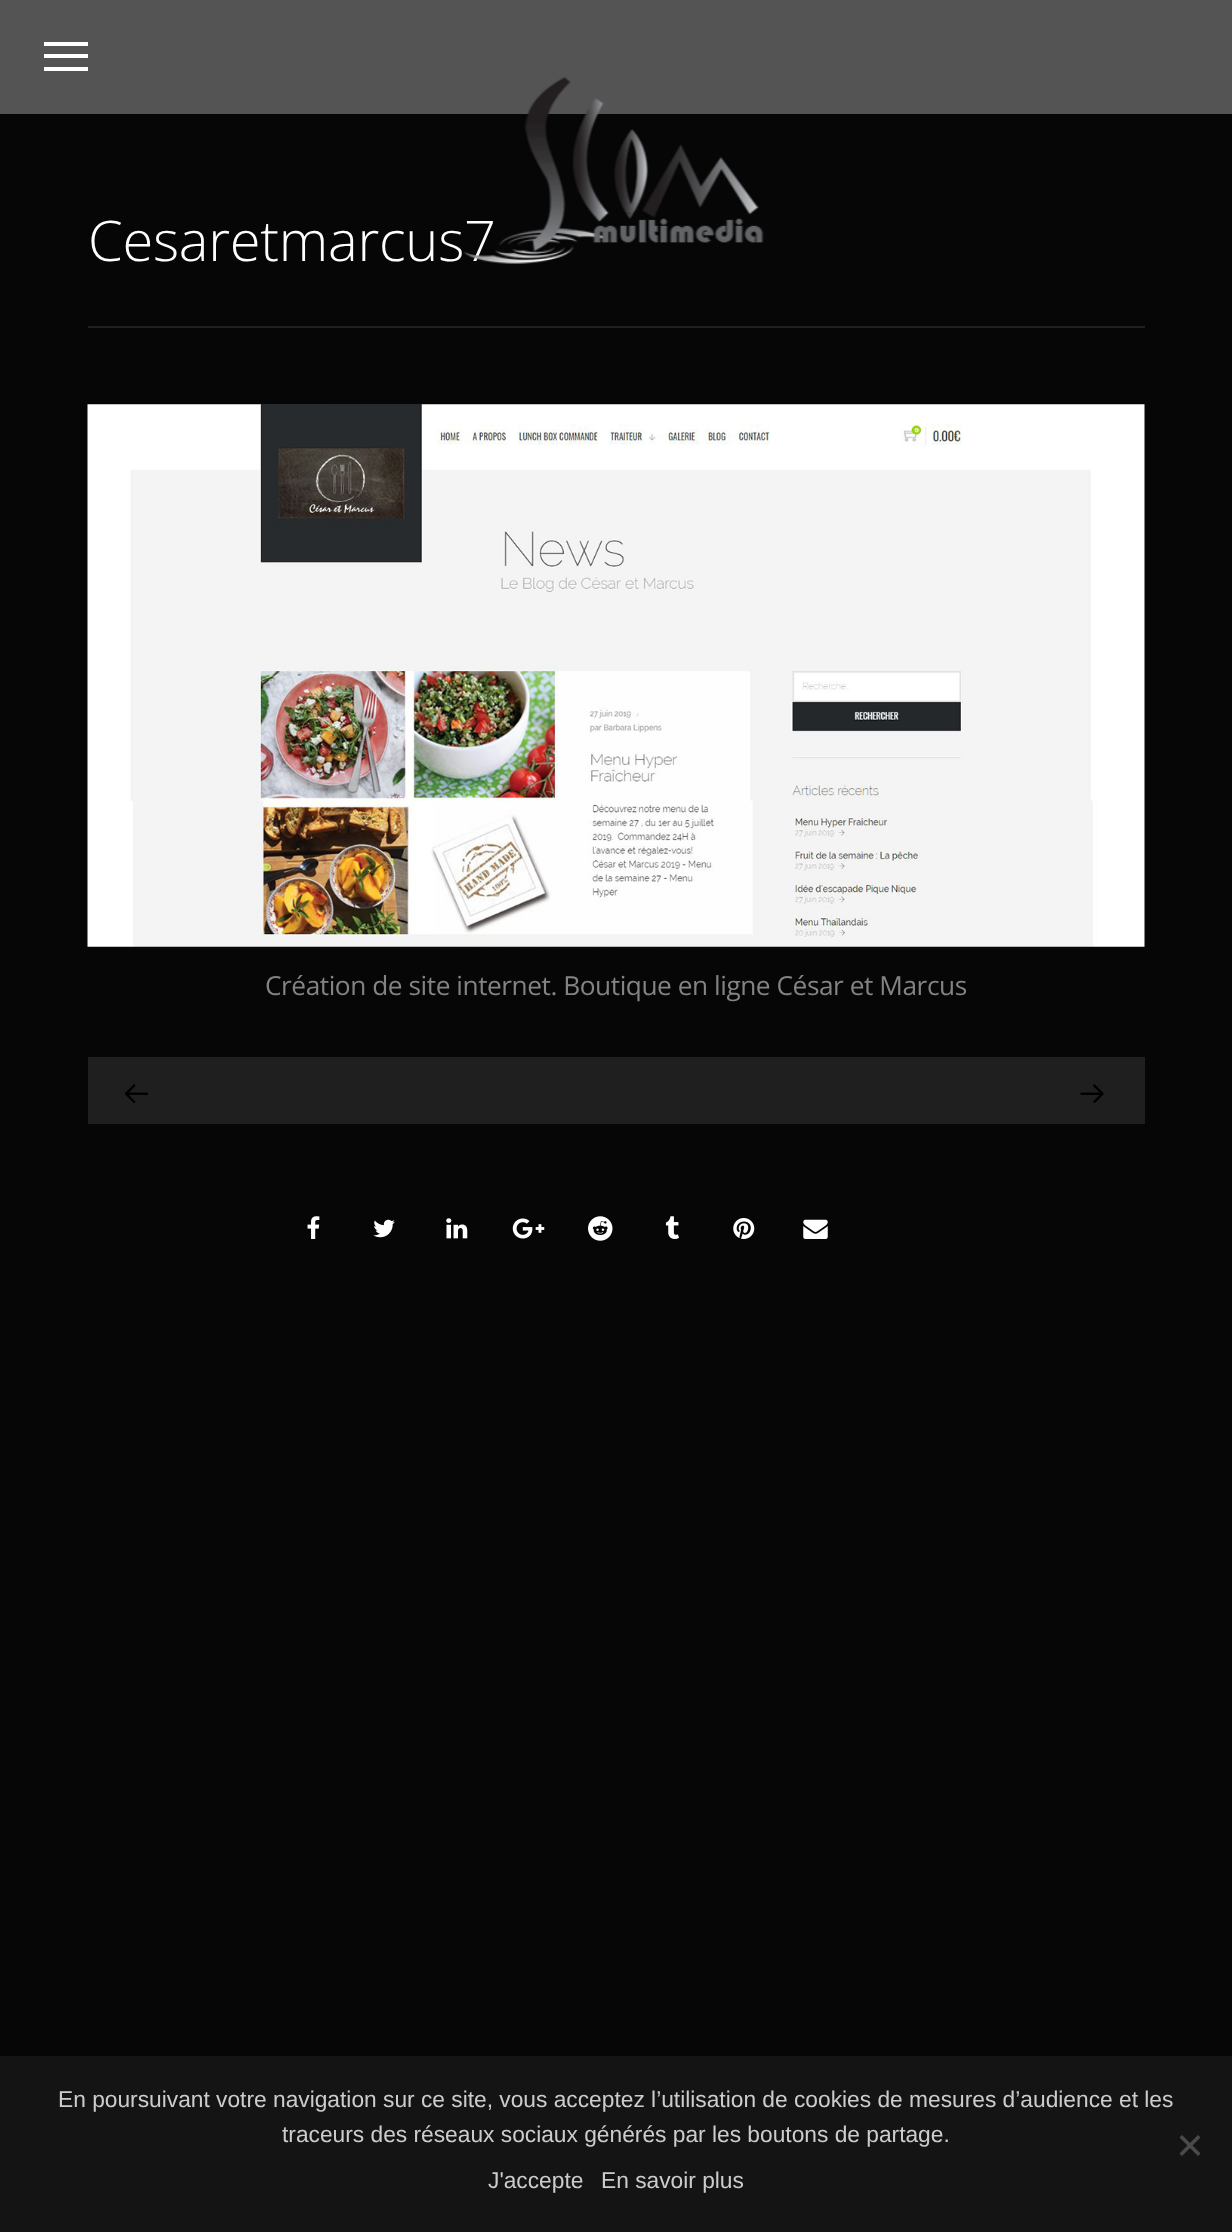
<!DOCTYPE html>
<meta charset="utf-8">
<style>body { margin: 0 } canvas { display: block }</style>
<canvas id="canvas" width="1232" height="2232"></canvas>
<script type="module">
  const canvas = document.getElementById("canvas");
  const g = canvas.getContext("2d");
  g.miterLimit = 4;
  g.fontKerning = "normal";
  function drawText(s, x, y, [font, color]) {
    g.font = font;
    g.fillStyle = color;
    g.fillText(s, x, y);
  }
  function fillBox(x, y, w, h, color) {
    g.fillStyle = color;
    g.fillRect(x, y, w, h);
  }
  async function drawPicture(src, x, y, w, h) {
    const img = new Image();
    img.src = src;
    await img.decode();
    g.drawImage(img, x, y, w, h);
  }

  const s1 = ["300 56px Open Sans", "#FFFFFF"];
  const s2 = ["26.25px Open Sans", "#838383"];
  const s3 = ["22.75px Liberation Sans", "#CCCCCC"];

  fillBox(0, 0, 1232, 2232, "#060606");
  fillBox(0, 0, 1232, 114, "#545454");
  g.letterSpacing = "-0.25px";
  drawText("Cesaretmarcus7", 88, 261, s1);
  await drawPicture("pic1.png", 463, 77, 301, 187);
  fillBox(44, 54, 44, 4, "#FFFFFF");
  fillBox(44, 42, 44, 4, "#FFFFFF");
  fillBox(44, 67, 44, 4, "#FFFFFF");
  fillBox(88, 326, 1057, 2, "#1F1F1F");
  await drawPicture("pic2.png", 87, 404, 1058, 543);
  g.letterSpacing = "-0.45px";
  drawText("Création de site internet. Boutique en ligne César et Marcus", 265, 995, s2);
  fillBox(88, 1057, 1057, 67, "#1F1F1F");
  await drawPicture("pic3.png", 125, 1084, 23, 19);
  await drawPicture("pic4.png", 1080, 1084, 24, 19);
  await drawPicture("pic5.png", 307, 1216, 13, 23);
  await drawPicture("pic6.png", 373, 1219, 22, 19);
  await drawPicture("pic7.png", 446, 1218, 22, 21);
  await drawPicture("pic8.png", 512, 1218, 33, 21);
  await drawPicture("pic9.png", 588, 1216, 25, 25);
  await drawPicture("pic10.png", 665, 1216, 14, 23);
  await drawPicture("pic11.png", 733, 1218, 22, 21);
  await drawPicture("pic12.png", 803, 1219, 25, 20);
  fillBox(0, 2056, 1232, 176, "#141414");
  g.letterSpacing = "0px";
  drawText("En poursuivant votre navigation sur ce site, vous acceptez l’utilisation de cookies de mesures d’audience et les", 58, 2107, s3);
  drawText("traceurs des réseaux sociaux générés par les boutons de partage.", 282, 2142, s3);
  g.fillStyle = "#4A4A4A";
  g.beginPath();
  g.moveTo(1198, 2135);
  g.lineTo(1200.5, 2137.5);
  g.lineTo(1182, 2156);
  g.lineTo(1179.5, 2153.5);
  g.closePath();
  g.fill();
  g.beginPath();
  g.moveTo(1179.5, 2137.5);
  g.lineTo(1182, 2135);
  g.lineTo(1200.5, 2153.5);
  g.lineTo(1198, 2156);
  g.closePath();
  g.fill();
  drawText("J'accepte", 488, 2188, s3);
  drawText("En savoir plus", 601, 2188, s3);
</script>
